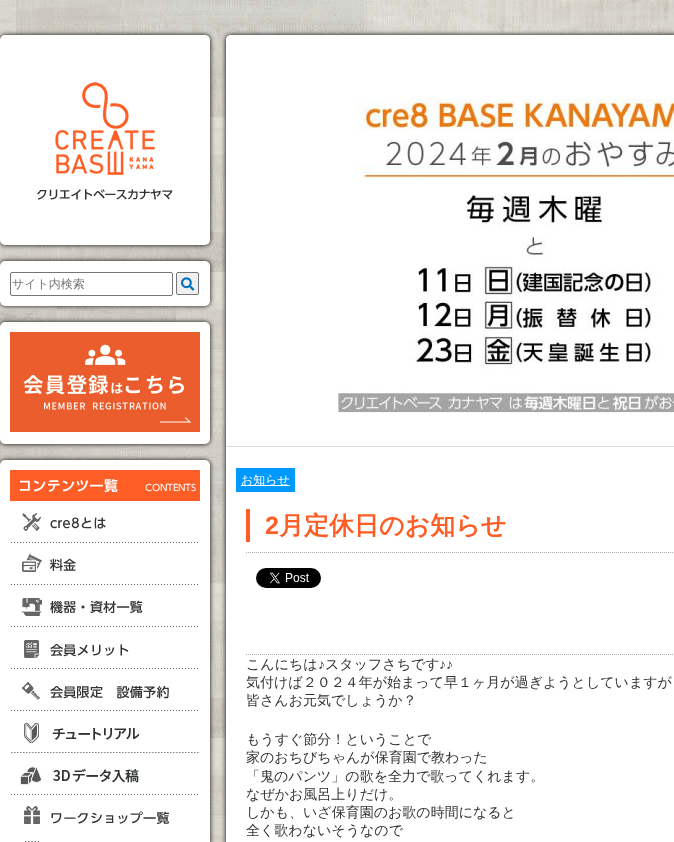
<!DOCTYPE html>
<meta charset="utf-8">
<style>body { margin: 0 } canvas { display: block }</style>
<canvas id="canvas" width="674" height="842"></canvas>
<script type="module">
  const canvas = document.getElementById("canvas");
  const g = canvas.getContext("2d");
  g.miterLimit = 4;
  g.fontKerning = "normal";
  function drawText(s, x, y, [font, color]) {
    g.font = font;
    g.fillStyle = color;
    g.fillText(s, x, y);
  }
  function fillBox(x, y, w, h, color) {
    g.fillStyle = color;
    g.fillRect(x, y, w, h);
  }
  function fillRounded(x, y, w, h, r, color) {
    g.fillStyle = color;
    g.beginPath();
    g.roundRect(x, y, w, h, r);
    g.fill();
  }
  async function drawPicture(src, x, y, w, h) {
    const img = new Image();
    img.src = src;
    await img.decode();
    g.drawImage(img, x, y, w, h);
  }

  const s1 = ["500 12px WenQuanYi Zen Hei", "#757575"];
  const s2 = ["500 12px WenQuanYi Zen Hei", "#FFFFFF"];
  const s3 = ["bold 25px Liberation Sans", "#FF5D26"];
  const s4 = ["bold 25px WenQuanYi Zen Hei", "#FF5D26"];
  const s5 = ["500 14px WenQuanYi Zen Hei", "#333333"];
  const s6 = ["14px Liberation Sans", "#333333"];

  fillBox(0, 0, 674, 842, "#FFFFFF");
  await drawPicture("pic1.png", 0, 0, 674, 842);
  g.fillStyle = "#000000";
  g.filter = "blur(2.5px)";
  g.beginPath();
  g.roundRect(0, 35, 210, 210, 5);
  g.fill();
  g.filter = "none";
  fillRounded(0, 35, 210, 210, 5, "#FFFFFF");
  await drawPicture("pic2.png", 37, 82, 136, 118);
  g.fillStyle = "#000000";
  g.filter = "blur(2.5px)";
  g.beginPath();
  g.roundRect(0, 261, 210, 45, 5);
  g.fill();
  g.filter = "none";
  fillRounded(0, 261, 210, 45, 5, "#FFFFFF");
  g.beginPath();
  g.roundRect(10.5, 272.5, 162, 23, 1.5);
  g.strokeStyle = "#767676";
  g.stroke();
  drawText("サイト内検索", 12, 288, s1);
  g.fillStyle = "#EFEFEF";
  g.beginPath();
  g.roundRect(176.5, 272.5, 22, 22, 1.5);
  g.fill();
  g.stroke();
  await drawPicture("pic3.png", 181, 277, 14, 14);
  g.fillStyle = "#000000";
  g.filter = "blur(2.5px)";
  g.beginPath();
  g.roundRect(0, 322, 210, 122, 5);
  g.fill();
  g.filter = "none";
  fillRounded(0, 322, 210, 122, 5, "#FFFFFF");
  await drawPicture("pic4.png", 10, 332, 190, 100);
  g.fillStyle = "#000000";
  g.filter = "blur(2.5px)";
  g.beginPath();
  g.roundRect(0, 460, 210, 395, 5);
  g.fill();
  g.filter = "none";
  fillRounded(0, 460, 210, 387, 5, "#FFFFFF");
  await drawPicture("pic5.png", 10, 470, 190, 31);
  await drawPicture("pic6.png", 11, 513, 187, 30);
  await drawPicture("pic7.png", 11, 554, 187, 31);
  await drawPicture("pic8.png", 11, 598, 187, 29);
  await drawPicture("pic9.png", 11, 640, 187, 29);
  await drawPicture("pic10.png", 11, 682, 187, 29);
  await drawPicture("pic11.png", 11, 723, 188, 30);
  await drawPicture("pic12.png", 11, 766, 187, 29);
  await drawPicture("pic13.png", 24, 806, 145, 18);
  await drawPicture("pic14.png", 25, 841, 15, 1);
  g.fillStyle = "#000000";
  g.filter = "blur(2.5px)";
  g.beginPath();
  g.roundRect(226, 35, 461, 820, 5);
  g.fill();
  g.filter = "none";
  fillRounded(226, 35, 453, 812, 5, "#FFFFFF");
  await drawPicture("pic15.png", 226, 35, 448, 378);
  fillBox(226, 446, 448, 1, "#DDDDDD");
  fillBox(236, 468, 59, 24, "#0099FF");
  fillBox(241, 485, 49, 1, "#FFFFFF");
  drawText("お知らせ", 241, 484, s2);
  fillBox(246, 509, 4, 33, "#FF5D26");
  drawText("2", 265, 534, s3);
  drawText("月定休日のお知らせ", 279, 534, s4);
  g.beginPath();
  g.moveTo(246, 552.5);
  g.lineTo(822, 552.5);
  g.strokeStyle = "#AAAAAA";
  g.setLineDash([1, 1]);
  g.stroke();
  g.beginPath();
  g.moveTo(246, 654.5);
  g.lineTo(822, 654.5);
  g.stroke();
  await drawPicture("pic16.png", 256, 568, 65, 20);
  drawText("こんにちは", 246, 669, s5);
  drawText("♪", 318, 669, s6);
  drawText("スタッフさちです", 325, 669, s5);
  drawText("♪♪", 439, 669, s6);
  drawText("気付けば２０２４年が始まって早１ヶ月が過ぎようとしていますが", 246, 687, s5);
  drawText("皆さんお元気でしょうか？", 246, 705, s5);
  drawText("もうすぐ節分！ということで", 246, 744, s5);
  drawText("家のおちびちゃんが保育園で教わった", 246, 762, s5);
  drawText("「鬼のパンツ」の歌を全力で歌ってくれます。", 246, 781, s5);
  drawText("なぜかお風呂上りだけ。", 246, 799, s5);
  drawText("しかも、いざ保育園のお歌の時間になると", 246, 817, s5);
  drawText("全く歌わないそうなので", 246, 835, s5);
</script>
